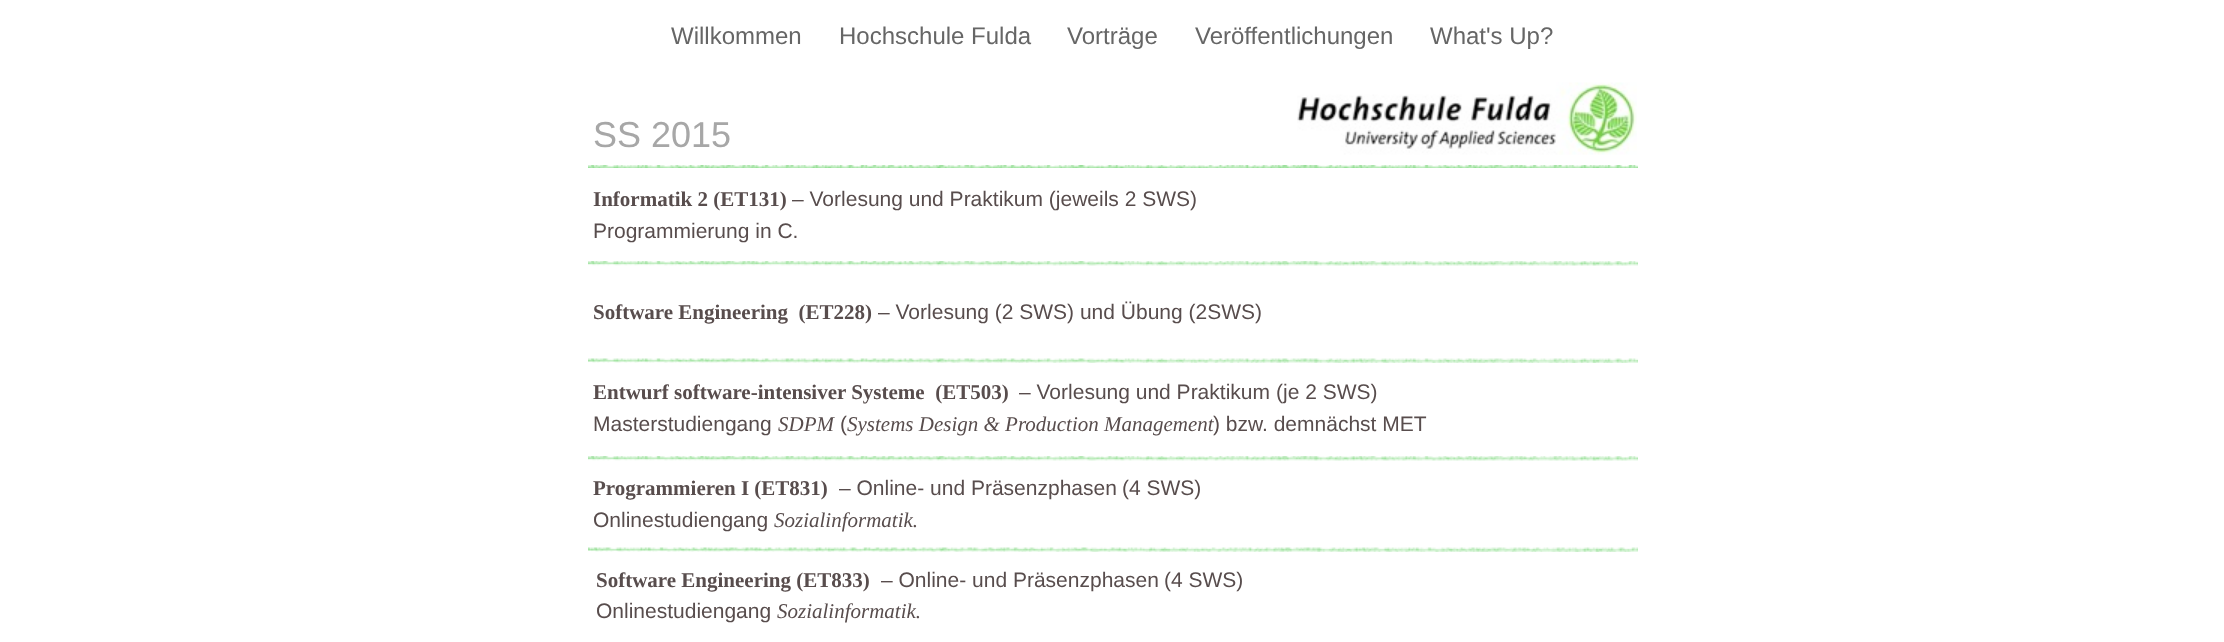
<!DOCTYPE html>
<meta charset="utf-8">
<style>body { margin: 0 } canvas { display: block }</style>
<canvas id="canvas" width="2224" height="642"></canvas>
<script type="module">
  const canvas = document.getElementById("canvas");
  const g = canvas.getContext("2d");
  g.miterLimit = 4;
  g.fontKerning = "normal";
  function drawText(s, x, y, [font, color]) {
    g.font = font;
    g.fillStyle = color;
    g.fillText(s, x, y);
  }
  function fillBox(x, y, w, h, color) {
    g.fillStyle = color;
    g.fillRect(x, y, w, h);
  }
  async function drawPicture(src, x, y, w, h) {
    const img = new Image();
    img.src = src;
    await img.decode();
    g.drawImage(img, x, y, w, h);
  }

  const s1 = ["24px Liberation Sans", "#666666"];
  const s2 = ["36px Liberation Sans", "#A7A7A7"];
  const s3 = ["bold 21px Liberation Serif", "#584D4D"];
  const s4 = ["21px Liberation Sans", "#584D4D"];
  const s5 = ["italic 21px Liberation Serif", "#584D4D"];

  fillBox(0, 0, 2224, 642, "#FFFFFF");
  drawText("Willkommen", 671, 44, s1);
  drawText("Hochschule Fulda", 839, 44, s1);
  drawText("Vorträge", 1067, 44, s1);
  drawText("Veröffentlichungen", 1195, 44, s1);
  drawText("What's Up?", 1430, 44, s1);
  drawText("SS 2015", 593, 147, s2);
  await drawPicture("pic1.png", 1297, 82, 340, 73);
  await drawPicture("pic2.png", 588, 165, 1050, 3);
  drawText("Informatik 2 (ET131)", 593, 206, s3);
  drawText("– Vorlesung und Praktikum (jeweils 2 SWS)", 792, 206, s4);
  drawText("Programmierung in C.", 593, 238, s4);
  await drawPicture("pic3.png", 588, 261, 1050, 5);
  drawText("Software Engineering  (ET228)", 593, 319, s3);
  drawText("– Vorlesung (2 SWS) und Übung (2SWS)", 878, 319, s4);
  await drawPicture("pic4.png", 588, 358, 1050, 5);
  drawText("Entwurf software-intensiver Systeme  (ET503)", 593, 399, s3);
  drawText("– Vorlesung und Praktikum", 1019, 399, s4);
  drawText("(je 2 SWS)", 1276, 399, s4);
  drawText("Masterstudiengang", 593, 431, s4);
  drawText("SDPM", 778, 431, s5);
  drawText("(", 840, 431, s4);
  drawText("Systems Design & Production Management", 847, 431, s5);
  drawText(") bzw. demnächst MET", 1213, 431, s4);
  await drawPicture("pic3.png", 588, 456, 1050, 5);
  drawText("Programmieren I (ET831)", 593, 495, s3);
  drawText("– Online- und Präsenzphasen", 839, 495, s4);
  drawText("(4 SWS)", 1122, 495, s4);
  drawText("Onlinestudiengang", 593, 527, s4);
  drawText("Sozialinformatik.", 774, 527, s5);
  await drawPicture("pic5.png", 588, 547, 1050, 5);
  drawText("Software Engineering (ET833)", 596, 587, s3);
  drawText("– Online- und Präsenzphasen", 881, 587, s4);
  drawText("(4 SWS)", 1164, 587, s4);
  drawText("Onlinestudiengang", 596, 618, s4);
  drawText("Sozialinformatik.", 777, 618, s5);
</script>
